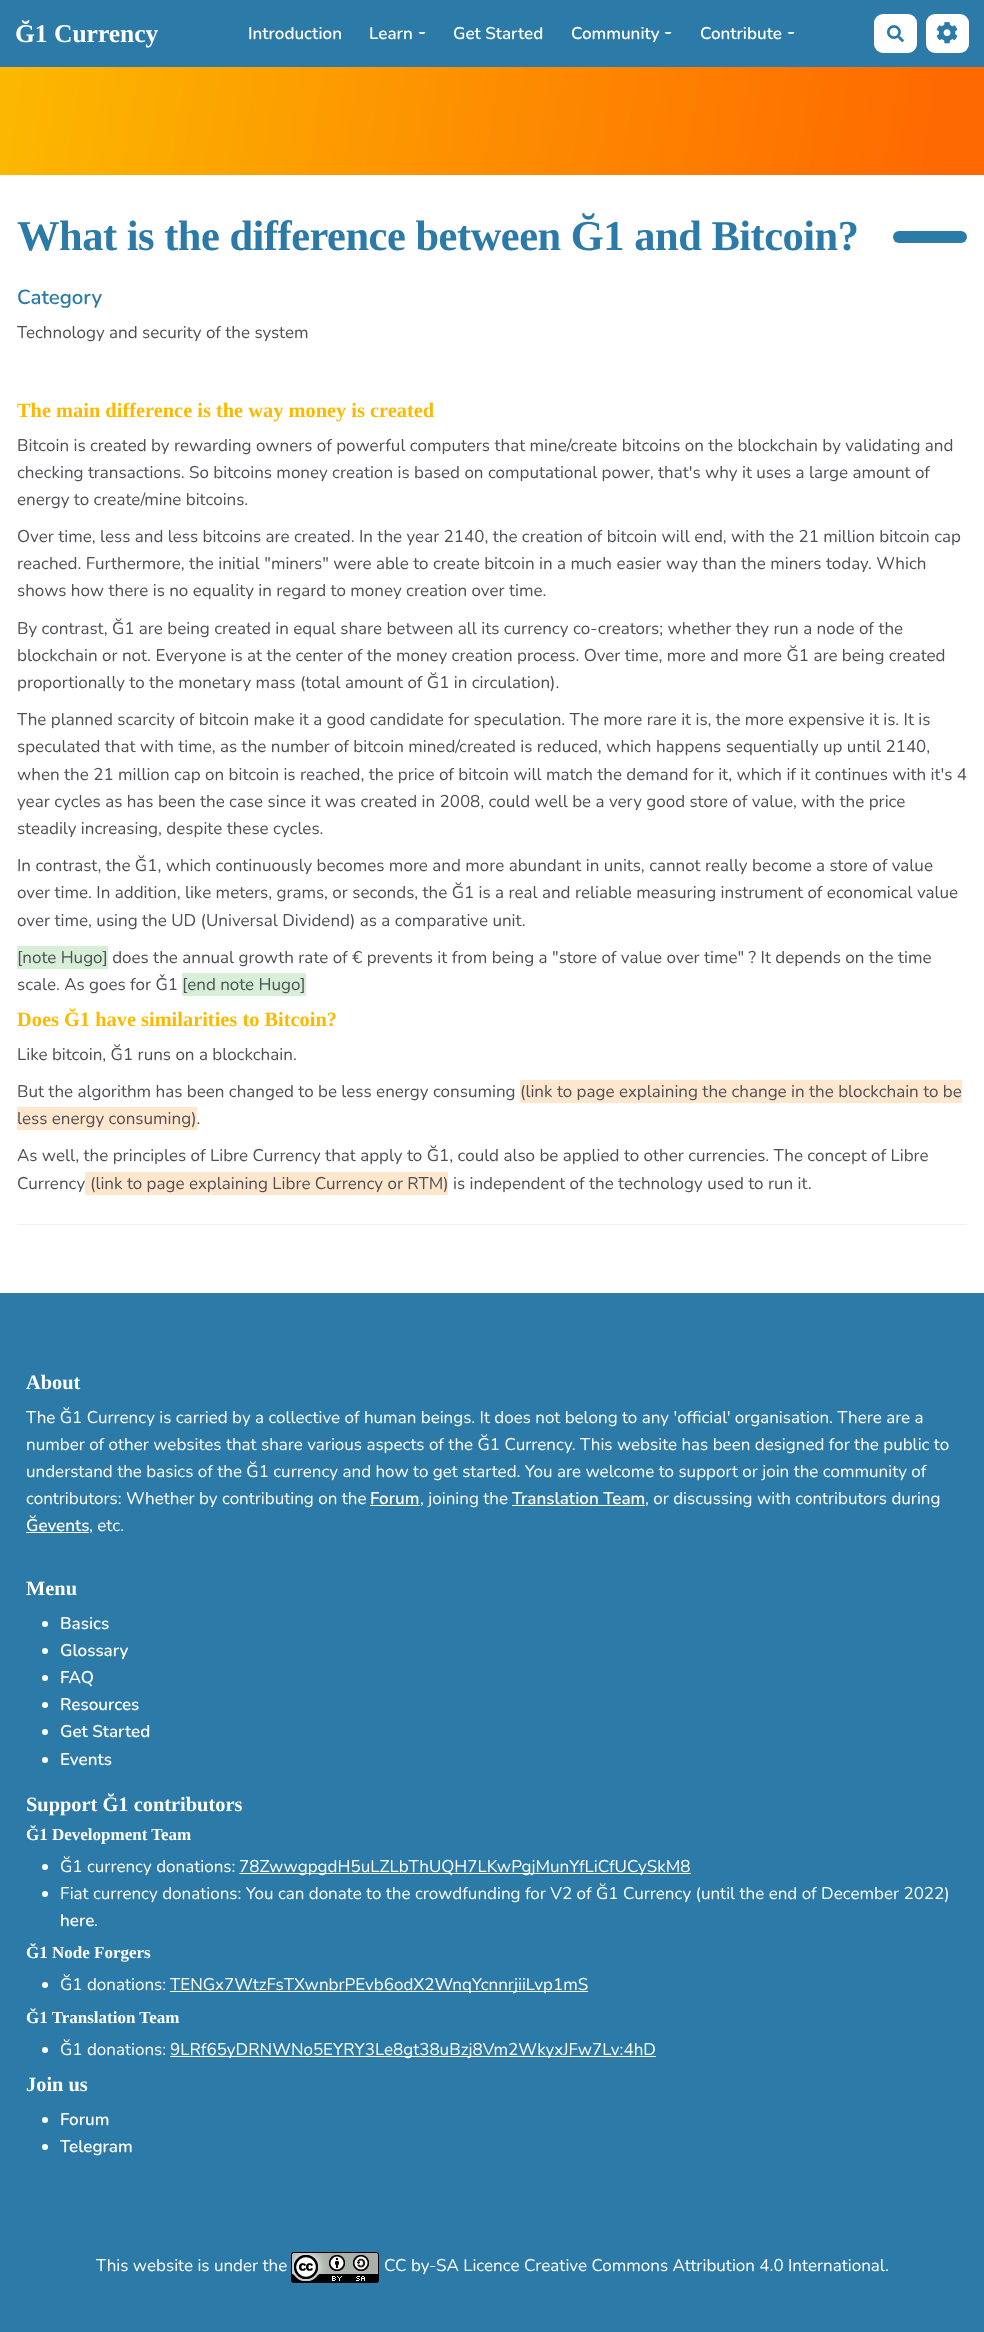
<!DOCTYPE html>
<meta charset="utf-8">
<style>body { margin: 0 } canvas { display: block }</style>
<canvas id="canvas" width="984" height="2332"></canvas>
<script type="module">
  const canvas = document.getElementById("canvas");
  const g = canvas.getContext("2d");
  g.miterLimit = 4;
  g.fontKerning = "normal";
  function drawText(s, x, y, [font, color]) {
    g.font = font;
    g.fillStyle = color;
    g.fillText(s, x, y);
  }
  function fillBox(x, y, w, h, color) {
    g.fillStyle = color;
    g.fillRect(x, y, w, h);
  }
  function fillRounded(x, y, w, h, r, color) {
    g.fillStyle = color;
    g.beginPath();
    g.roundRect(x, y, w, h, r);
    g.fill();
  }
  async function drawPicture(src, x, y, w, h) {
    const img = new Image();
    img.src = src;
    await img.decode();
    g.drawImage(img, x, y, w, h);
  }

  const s1 = ["bold 25.5px Liberation Serif", "#FFFFFF"];
  const s2 = ["600 17px Nunito", "#FFFFFF"];
  const s3 = ["bold 42.5px Liberation Serif", "#2C7AA8"];
  const s4 = ["600 20.4px Nunito", "#2C7AA8"];
  const s5 = ["17px Nunito", "#4E5056"];
  const s6 = ["bold 20.4px Liberation Serif", "#FCB900"];
  const s7 = ["bold 20.4px Liberation Serif", "#FFFFFF"];
  const s8 = ["17px Nunito", "#FFFFFF"];
  const s9 = ["bold 17px Liberation Serif", "#FFFFFF"];

  fillBox(0, 0, 984, 2332, "#FFFFFF");
  fillBox(0, 0, 984, 67, "#2C7AA8");
  drawText("Ğ1 Currency", 15, 42, s1);
  drawText("Introduction", 248, 39, s2);
  drawText("Learn", 369, 39, s2);
  g.fillStyle = "#EAF2F6";
  g.beginPath();
  g.moveTo(420, 32);
  g.lineTo(418.5, 32.5);
  g.lineTo(420, 34);
  g.lineTo(424, 34);
  g.lineTo(425.5, 32.5);
  g.lineTo(425, 32);
  g.closePath();
  g.fill();
  drawText("Get Started", 453, 39, s2);
  drawText("Community", 571, 39, s2);
  g.fillStyle = "#EAF2F6";
  g.beginPath();
  g.moveTo(666, 32);
  g.lineTo(664.5, 32.5);
  g.lineTo(666, 34);
  g.lineTo(670, 34);
  g.lineTo(671.5, 32.5);
  g.lineTo(671, 32);
  g.closePath();
  g.fill();
  drawText("Contribute", 700, 39, s2);
  g.fillStyle = "#EAF2F6";
  g.beginPath();
  g.moveTo(789, 32);
  g.lineTo(787.5, 32.5);
  g.lineTo(789, 34);
  g.lineTo(793, 34);
  g.lineTo(794.5, 32.5);
  g.lineTo(794, 32);
  g.closePath();
  g.fill();
  fillRounded(874, 14, 43, 39, 9, "#FFFFFF");
  await drawPicture("pic1.png", 887, 25, 17, 18);
  fillRounded(926, 14, 43, 39, 9, "#FFFFFF");
  await drawPicture("pic2.png", 936, 22, 22, 22);
  await drawPicture("pic3.png", 0, 67, 984, 108);
  g.letterSpacing = "-0.5px";
  drawText("What is the difference between Ğ1 and Bitcoin?", 17, 250, s3);
  fillRounded(893, 231, 74, 12, 6, "#2C7AA8");
  g.letterSpacing = "0px";
  drawText("Category", 17, 304, s4);
  drawText("Technology and security of the system", 17, 338, s5);
  drawText("The main difference is the way money is created", 17, 417, s6);
  drawText("Bitcoin is created by rewarding owners of powerful computers that mine/create bitcoins on the blockchain by validating and", 17, 451, s5);
  drawText("checking transactions. So bitcoins money creation is based on computational power, that's why it uses a large amount of", 17, 478, s5);
  drawText("energy to create/mine bitcoins.", 17, 505, s5);
  drawText("Over time, less and less bitcoins are created. In the year 2140, the creation of bitcoin will end, with the 21 million bitcoin cap", 17, 542, s5);
  drawText("reached. Furthermore, the initial \"miners\" were able to create bitcoin in a much easier way than the miners today. Which", 17, 569, s5);
  drawText("shows how there is no equality in regard to money creation over time.", 17, 596, s5);
  drawText("By contrast, Ğ1 are being created in equal share between all its currency co-creators; whether they run a node of the", 17, 634, s5);
  drawText("blockchain or not. Everyone is at the center of the money creation process. Over time, more and more Ğ1 are being created", 17, 661, s5);
  drawText("proportionally to the monetary mass (total amount of Ğ1 in circulation).", 17, 688, s5);
  drawText("The planned scarcity of bitcoin make it a good candidate for speculation. The more rare it is, the more expensive it is. It is", 17, 725, s5);
  drawText("speculated that with time, as the number of bitcoin mined/created is reduced, which happens sequentially up until 2140,", 17, 752, s5);
  drawText("when the 21 million cap on bitcoin is reached, the price of bitcoin will match the demand for it, which if it continues with it's 4", 17, 780, s5);
  drawText("year cycles as has been the case since it was created in 2008, could well be a very good store of value, with the price", 17, 807, s5);
  drawText("steadily increasing, despite these cycles.", 17, 834, s5);
  drawText("In contrast, the Ğ1, which continuously becomes more and more abundant in units, cannot really become a store of value", 17, 871, s5);
  drawText("over time. In addition, like meters, grams, or seconds, the Ğ1 is a real and reliable measuring instrument of economical value", 17, 898, s5);
  drawText("over time, using the UD (Universal Dividend) as a comparative unit.", 17, 926, s5);
  fillBox(17, 946, 91, 23, "#D6EFD6");
  drawText("[note Hugo] does the annual growth rate of € prevents it from being a \"store of value over time\" ? It depends on the time", 17, 963, s5);
  drawText("scale. As goes for Ǧ1", 17, 990, s5);
  fillBox(182, 973, 124, 23, "#D6EFD6");
  drawText("[end note Hugo]", 182, 990, s5);
  drawText("Does Ğ1 have similarities to Bitcoin?", 17, 1026, s6);
  drawText("Like bitcoin, Ğ1 runs on a blockchain.", 17, 1060, s5);
  drawText("But the algorithm has been changed to be less energy consuming", 17, 1097, s5);
  fillBox(520, 1080, 442, 23, "#FFE7CE");
  drawText("(link to page explaining the change in the blockchain to be", 520, 1097, s5);
  fillBox(17, 1107, 180, 23, "#FFE7CE");
  drawText("less energy consuming).", 17, 1124, s5);
  drawText("As well, the principles of Libre Currency that apply to Ğ1, could also be applied to other currencies. The concept of Libre", 17, 1161, s5);
  drawText("Currency", 17, 1189, s5);
  fillBox(85, 1172, 363, 23, "#FFE7CE");
  drawText("(link to page explaining Libre Currency or RTM) is independent of the technology used to run it.", 90, 1189, s5);
  fillBox(17, 1224, 950, 1, "#F1F1F1");
  fillBox(0, 1293, 984, 1039, "#2C7AA8");
  drawText("About", 26, 1389, s7);
  drawText("The Ğ1 Currency is carried by a collective of human beings. It does not belong to any 'official' organisation. There are a", 26, 1423, s8);
  drawText("number of other websites that share various aspects of the Ğ1 Currency. This website has been designed for the public to", 26, 1450, s8);
  drawText("understand the basics of the Ğ1 currency and how to get started. You are welcome to support or join the community of", 26, 1477, s8);
  drawText("contributors: Whether by contributing on the", 26, 1504, s8);
  drawText("Forum", 370, 1504, s2);
  fillBox(370, 1505, 50, 1, "#FFFFFF");
  drawText(", joining the", 420, 1504, s8);
  drawText("Translation Team", 512, 1504, s2);
  fillBox(512, 1505, 133, 1, "#FFFFFF");
  drawText(", or discussing with contributors during", 645, 1504, s8);
  drawText("Ğevents", 26, 1531, s2);
  fillBox(26, 1532, 63, 1, "#FFFFFF");
  drawText(", etc.", 89, 1531, s8);
  drawText("Menu", 26, 1595, s7);
  g.beginPath();
  g.arc(45, 1624, 3, 0, Math.PI * 2);
  g.fill();
  drawText("Basics", 60, 1629, s2);
  g.beginPath();
  g.arc(45, 1651, 3, 0, Math.PI * 2);
  g.fill();
  drawText("Glossary", 60, 1656, s2);
  g.beginPath();
  g.arc(45, 1678, 3, 0, Math.PI * 2);
  g.fill();
  drawText("FAQ", 60, 1683, s2);
  g.beginPath();
  g.arc(45, 1705, 3, 0, Math.PI * 2);
  g.fill();
  drawText("Resources", 60, 1710, s2);
  g.beginPath();
  g.arc(45, 1732, 3, 0, Math.PI * 2);
  g.fill();
  drawText("Get Started", 60, 1737, s2);
  g.beginPath();
  g.arc(45, 1760, 3, 0, Math.PI * 2);
  g.fill();
  drawText("Events", 60, 1765, s2);
  drawText("Support Ğ1 contributors", 26, 1811, s7);
  drawText("Ğ1 Development Team", 26, 1840, s9);
  g.beginPath();
  g.arc(45, 1867, 3, 0, Math.PI * 2);
  g.fill();
  drawText("Ğ1 currency donations:", 60, 1872, s8);
  fillBox(239, 1873, 452, 1, "#FFFFFF");
  drawText("78ZwwgpgdH5uLZLbThUQH7LKwPgjMunYfLiCfUCySkM8", 239, 1872, s8);
  g.beginPath();
  g.arc(45, 1894, 3, 0, Math.PI * 2);
  g.fill();
  drawText("Fiat currency donations: You can donate to the crowdfunding for V2 of Ğ1 Currency (until the end of December 2022)", 60, 1899, s8);
  drawText("here", 60, 1926, s2);
  drawText(".", 94, 1926, s8);
  drawText("Ğ1 Node Forgers", 26, 1958, s9);
  g.beginPath();
  g.arc(45, 1985, 3, 0, Math.PI * 2);
  g.fill();
  drawText("Ğ1 donations:", 60, 1990, s8);
  fillBox(170, 1991, 418, 1, "#FFFFFF");
  drawText("TENGx7WtzFsTXwnbrPEvb6odX2WnqYcnnrjiiLvp1mS", 170, 1990, s8);
  drawText("Ğ1 Translation Team", 26, 2023, s9);
  g.beginPath();
  g.arc(45, 2050, 3, 0, Math.PI * 2);
  g.fill();
  drawText("Ğ1 donations:", 60, 2055, s8);
  fillBox(170, 2056, 486, 1, "#FFFFFF");
  drawText("9LRf65yDRNWNo5EYRY3Le8gt38uBzj8Vm2WkyxJFw7Lv:4hD", 170, 2055, s8);
  drawText("Join us", 26, 2091, s7);
  g.beginPath();
  g.arc(45, 2120, 3, 0, Math.PI * 2);
  g.fill();
  drawText("Forum", 60, 2125, s2);
  g.beginPath();
  g.arc(45, 2147, 3, 0, Math.PI * 2);
  g.fill();
  drawText("Telegram", 60, 2152, s2);
  drawText("This website is under the", 96, 2271, s8);
  await drawPicture("pic4.png", 291, 2252, 88, 31);
  drawText("CC by-SA Licence Creative Commons Attribution 4.0 International.", 384, 2271, s8);
</script>
